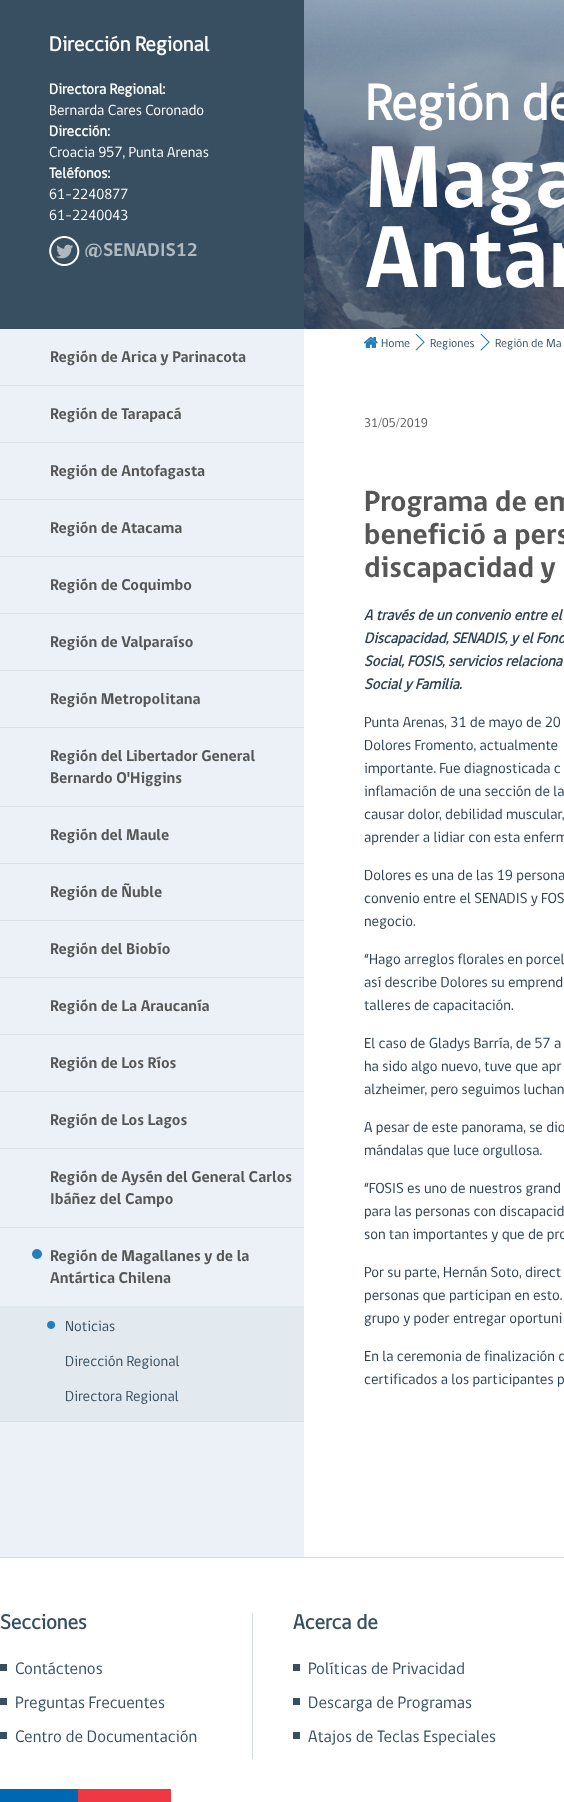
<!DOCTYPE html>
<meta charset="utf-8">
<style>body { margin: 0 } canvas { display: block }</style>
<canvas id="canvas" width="564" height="1802"></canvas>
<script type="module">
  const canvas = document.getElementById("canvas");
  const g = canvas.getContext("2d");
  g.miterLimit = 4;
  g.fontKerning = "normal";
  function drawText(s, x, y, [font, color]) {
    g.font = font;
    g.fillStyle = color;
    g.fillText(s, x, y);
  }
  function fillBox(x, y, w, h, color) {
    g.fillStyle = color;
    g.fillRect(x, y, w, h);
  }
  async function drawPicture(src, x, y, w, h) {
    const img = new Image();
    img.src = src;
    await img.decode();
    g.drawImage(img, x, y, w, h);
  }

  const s1 = ["bold 21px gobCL", "#FFFFFF"];
  const s2 = ["bold 15px gobCL", "#FFFFFF"];
  const s3 = ["15px gobCL", "#FFFFFF"];
  const s4 = ["bold 19px 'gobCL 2'", "#AFB9BF"];
  const s5 = ["bold 52px gobCL", "#FFFFFF"];
  const s6 = ["bold 90px 'gobCL 2'", "#FFFFFF"];
  const s7 = ["bold 16px 'gobCL 2'", "#565656"];
  const s8 = ["15px gobCL", "#374F60"];
  const s9 = ["12px gobCL", "#374F60"];
  const s10 = ["13px gobCL", "#565656"];
  const s11 = ["bold 30px 'gobCL 2'", "#565656"];
  const s12 = ["italic bold 15px gobCL", "#2B4151"];
  const s13 = ["15px gobCL", "#2B4151"];
  const s14 = ["bold 21px gobCL", "#374F60"];
  const s15 = ["17px gobCL", "#374F60"];

  fillBox(0, 0, 564, 1802, "#FFFFFF");
  await drawPicture("pic1.png", 304, 0, 260, 329);
  fillBox(0, 0, 304, 329, "#374F60");
  drawText("Dirección Regional", 49, 51, s1);
  drawText("Directora Regional:", 49, 94, s2);
  drawText("Bernarda Cares Coronado", 49, 115, s3);
  drawText("Dirección:", 49, 136, s2);
  drawText("Croacia 957, Punta Arenas", 49, 157, s3);
  drawText("Teléfonos:", 49, 178, s2);
  drawText("61-2240877", 49, 199, s3);
  drawText("61-2240043", 49, 220, s3);
  await drawPicture("pic2.png", 49, 236, 31, 30);
  drawText("@SENADIS12", 84, 256, s4);
  drawText("Región de", 365, 120, s5);
  drawText("Maga", 365, 207, s6);
  drawText("Antár", 365, 287, s6);
  fillBox(0, 329, 304, 1228, "#EBF1F6");
  fillBox(0, 385, 304, 1, "#D9DFE4");
  drawText("Región de Arica y Parinacota", 50, 362, s7);
  fillBox(0, 442, 304, 1, "#D9DFE4");
  drawText("Región de Tarapacá", 50, 419, s7);
  fillBox(0, 499, 304, 1, "#D9DFE4");
  drawText("Región de Antofagasta", 50, 476, s7);
  fillBox(0, 556, 304, 1, "#D9DFE4");
  drawText("Región de Atacama", 50, 533, s7);
  fillBox(0, 613, 304, 1, "#D9DFE4");
  drawText("Región de Coquimbo", 50, 590, s7);
  fillBox(0, 670, 304, 1, "#D9DFE4");
  drawText("Región de Valparaíso", 50, 647, s7);
  fillBox(0, 727, 304, 1, "#D9DFE4");
  drawText("Región Metropolitana", 50, 704, s7);
  fillBox(0, 806, 304, 1, "#D9DFE4");
  drawText("Región del Libertador General", 50, 761, s7);
  drawText("Bernardo O'Higgins", 50, 783, s7);
  fillBox(0, 863, 304, 1, "#D9DFE4");
  drawText("Región del Maule", 50, 840, s7);
  fillBox(0, 920, 304, 1, "#D9DFE4");
  drawText("Región de Ñuble", 50, 897, s7);
  fillBox(0, 977, 304, 1, "#D9DFE4");
  drawText("Región del Biobío", 50, 954, s7);
  fillBox(0, 1034, 304, 1, "#D9DFE4");
  drawText("Región de La Araucanía", 50, 1011, s7);
  fillBox(0, 1091, 304, 1, "#D9DFE4");
  drawText("Región de Los Ríos", 50, 1068, s7);
  fillBox(0, 1148, 304, 1, "#D9DFE4");
  drawText("Región de Los Lagos", 50, 1125, s7);
  fillBox(0, 1227, 304, 1, "#D9DFE4");
  drawText("Región de Aysén del General Carlos", 50, 1182, s7);
  drawText("Ibáñez del Campo", 50, 1204, s7);
  await drawPicture("pic3.png", 32, 1249, 10, 10);
  fillBox(0, 1421, 304, 1, "#D9DFE4");
  drawText("Región de Magallanes y de la", 50, 1261, s7);
  drawText("Antártica Chilena", 50, 1283, s7);
  fillBox(0, 1306, 304, 115, "#E2E9EF");
  await drawPicture("pic4.png", 47, 1320, 9, 9);
  drawText("Noticias", 65, 1331, s8);
  drawText("Dirección Regional", 65, 1366, s8);
  drawText("Directora Regional", 65, 1401, s8);
  await drawPicture("pic5.png", 364, 337, 14, 11);
  await drawPicture("pic6.png", 415, 334, 10, 17);
  drawText("Home", 381, 347, s9);
  await drawPicture("pic6.png", 480, 334, 10, 17);
  drawText("Regiones", 430, 347, s9);
  drawText("Región de Ma", 495, 347, s9);
  drawText("31/05/2019", 364, 427, s10);
  drawText("Programa de em", 364, 511, s11);
  drawText("benefició a pers", 364, 544, s11);
  drawText("discapacidad y", 364, 577, s11);
  drawText("A través de un convenio entre el", 364, 620, s12);
  drawText("Discapacidad, SENADIS, y el Fond", 364, 643, s12);
  drawText("Social, FOSIS, servicios relaciona", 364, 666, s12);
  drawText("Social y Familia.", 364, 689, s12);
  drawText("Punta Arenas, 31 de mayo de 20", 364, 727, s13);
  drawText("Dolores Fromento, actualmente", 364, 750, s13);
  drawText("importante. Fue diagnosticada c", 364, 773, s13);
  drawText("inflamación de una sección de la", 364, 796, s13);
  drawText("causar dolor, debilidad muscular,", 364, 819, s13);
  drawText("aprender a lidiar con esta enferm", 364, 842, s13);
  drawText("Dolores es una de las 19 persona", 364, 880, s13);
  drawText("convenio entre el SENADIS y FOS", 364, 903, s13);
  drawText("negocio.", 364, 926, s13);
  drawText("“Hago arreglos florales en porcel", 364, 964, s13);
  drawText("así describe Dolores su emprend", 364, 987, s13);
  drawText("talleres de capacitación.", 364, 1010, s13);
  drawText("El caso de Gladys Barría, de 57 a", 364, 1048, s13);
  drawText("ha sido algo nuevo, tuve que apr", 364, 1071, s13);
  drawText("alzheimer, pero seguimos luchan", 364, 1094, s13);
  drawText("A pesar de este panorama, se dio", 364, 1132, s13);
  drawText("mándalas que luce orgullosa.", 364, 1155, s13);
  drawText("“FOSIS es uno de nuestros grand", 364, 1193, s13);
  drawText("para las personas con discapacid", 364, 1216, s13);
  drawText("son tan importantes y que de pro", 364, 1239, s13);
  drawText("Por su parte, Hernán Soto, direct", 364, 1277, s13);
  drawText("personas que participan en esto.", 364, 1300, s13);
  drawText("grupo y poder entregar oportuni", 364, 1323, s13);
  drawText("En la ceremonia de finalización d", 364, 1361, s13);
  drawText("certificados a los participantes p", 364, 1384, s13);
  fillBox(0, 1557, 564, 1, "#D3DCE1");
  await drawPicture("pic7.png", 0, 1789, 171, 13);
  fillBox(252, 1613, 1, 146, "#D3DCE1");
  drawText("Secciones", 0, 1629, s14);
  fillBox(0, 1664, 7, 7, "#374F60");
  drawText("Contáctenos", 15, 1674, s15);
  fillBox(0, 1698, 7, 7, "#374F60");
  drawText("Preguntas Frecuentes", 15, 1708, s15);
  fillBox(0, 1732, 7, 7, "#374F60");
  drawText("Centro de Documentación", 15, 1742, s15);
  drawText("Acerca de", 293, 1629, s14);
  fillBox(293, 1664, 7, 7, "#374F60");
  drawText("Políticas de Privacidad", 308, 1674, s15);
  fillBox(293, 1698, 7, 7, "#374F60");
  drawText("Descarga de Programas", 308, 1708, s15);
  fillBox(293, 1732, 7, 7, "#374F60");
  drawText("Atajos de Teclas Especiales", 308, 1742, s15);
</script>
